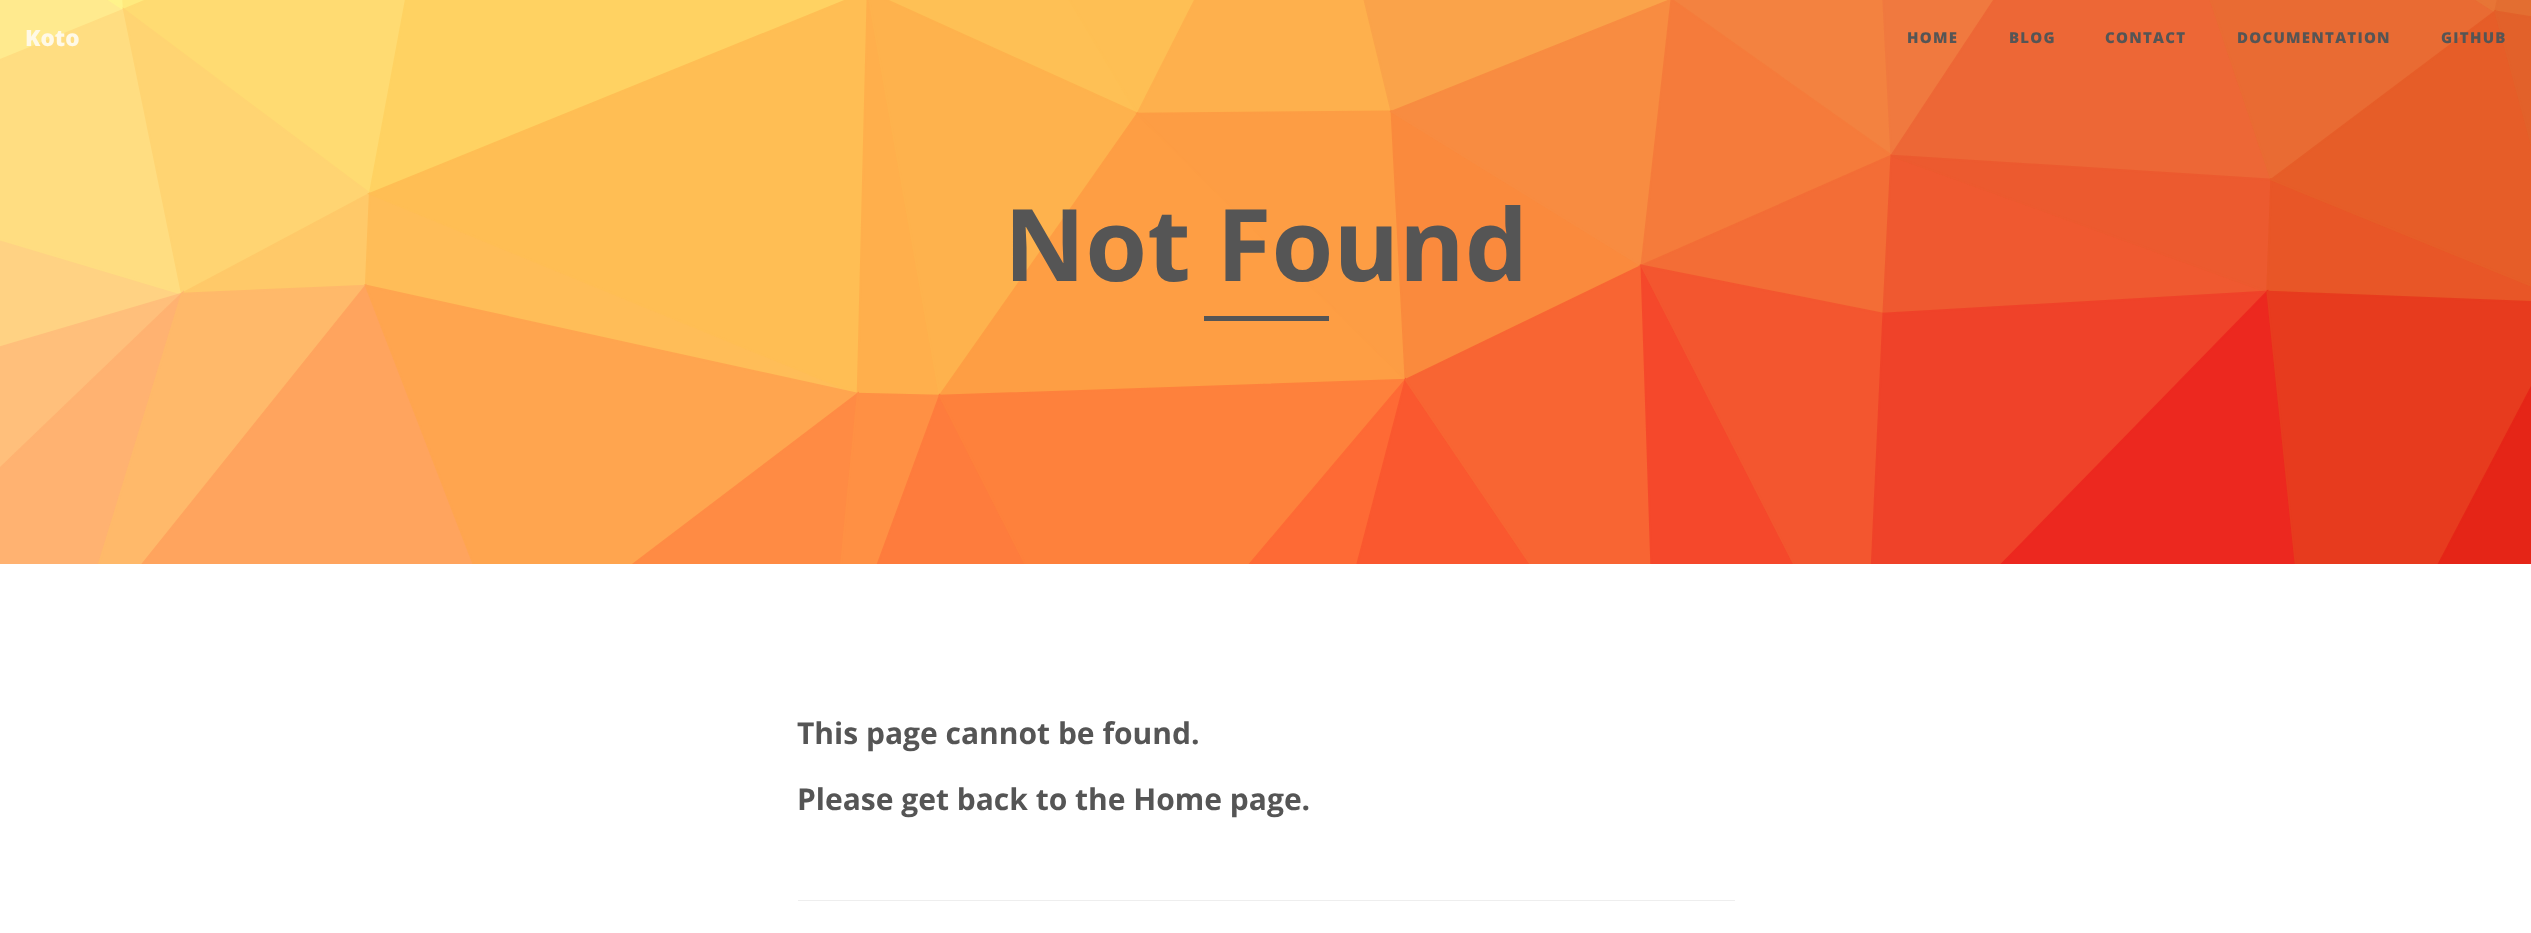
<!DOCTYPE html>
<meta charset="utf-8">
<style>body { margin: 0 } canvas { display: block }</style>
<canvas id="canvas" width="2531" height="933"></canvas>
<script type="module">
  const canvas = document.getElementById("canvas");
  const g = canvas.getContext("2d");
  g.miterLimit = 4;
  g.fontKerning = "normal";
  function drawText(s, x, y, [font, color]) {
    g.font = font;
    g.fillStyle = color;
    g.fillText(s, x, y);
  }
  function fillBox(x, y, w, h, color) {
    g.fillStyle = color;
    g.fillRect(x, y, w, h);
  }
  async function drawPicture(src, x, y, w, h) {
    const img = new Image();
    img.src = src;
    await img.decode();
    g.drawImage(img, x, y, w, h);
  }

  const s1 = ["800 22.5px Open Sans", "#FFF9E7"];
  const s2 = ["800 15px Open Sans", "#555555"];
  const s3 = ["bold 100px Open Sans", "#555555"];
  const s4 = ["bold 30px Open Sans", "#555555"];

  fillBox(0, 0, 2531, 933, "#FFFFFF");
  await drawPicture("pic1.png", 0, 0, 2531, 564);
  drawText("Koto", 25, 46, s1);
  g.letterSpacing = "1.25px";
  drawText("HOME", 1907, 43, s2);
  drawText("BLOG", 2009, 43, s2);
  drawText("CONTACT", 2105, 43, s2);
  drawText("DOCUMENTATION", 2237, 43, s2);
  drawText("GITHUB", 2441, 43, s2);
  g.letterSpacing = "0px";
  drawText("Not Found", 1004, 281, s3);
  fillBox(1204, 316, 125, 5, "#555555");
  drawText("This page cannot be found.", 797, 744, s4);
  drawText("Please get back to the Home page.", 797, 810, s4);
  fillBox(798, 900, 937, 1, "#EEEEEE");
</script>
